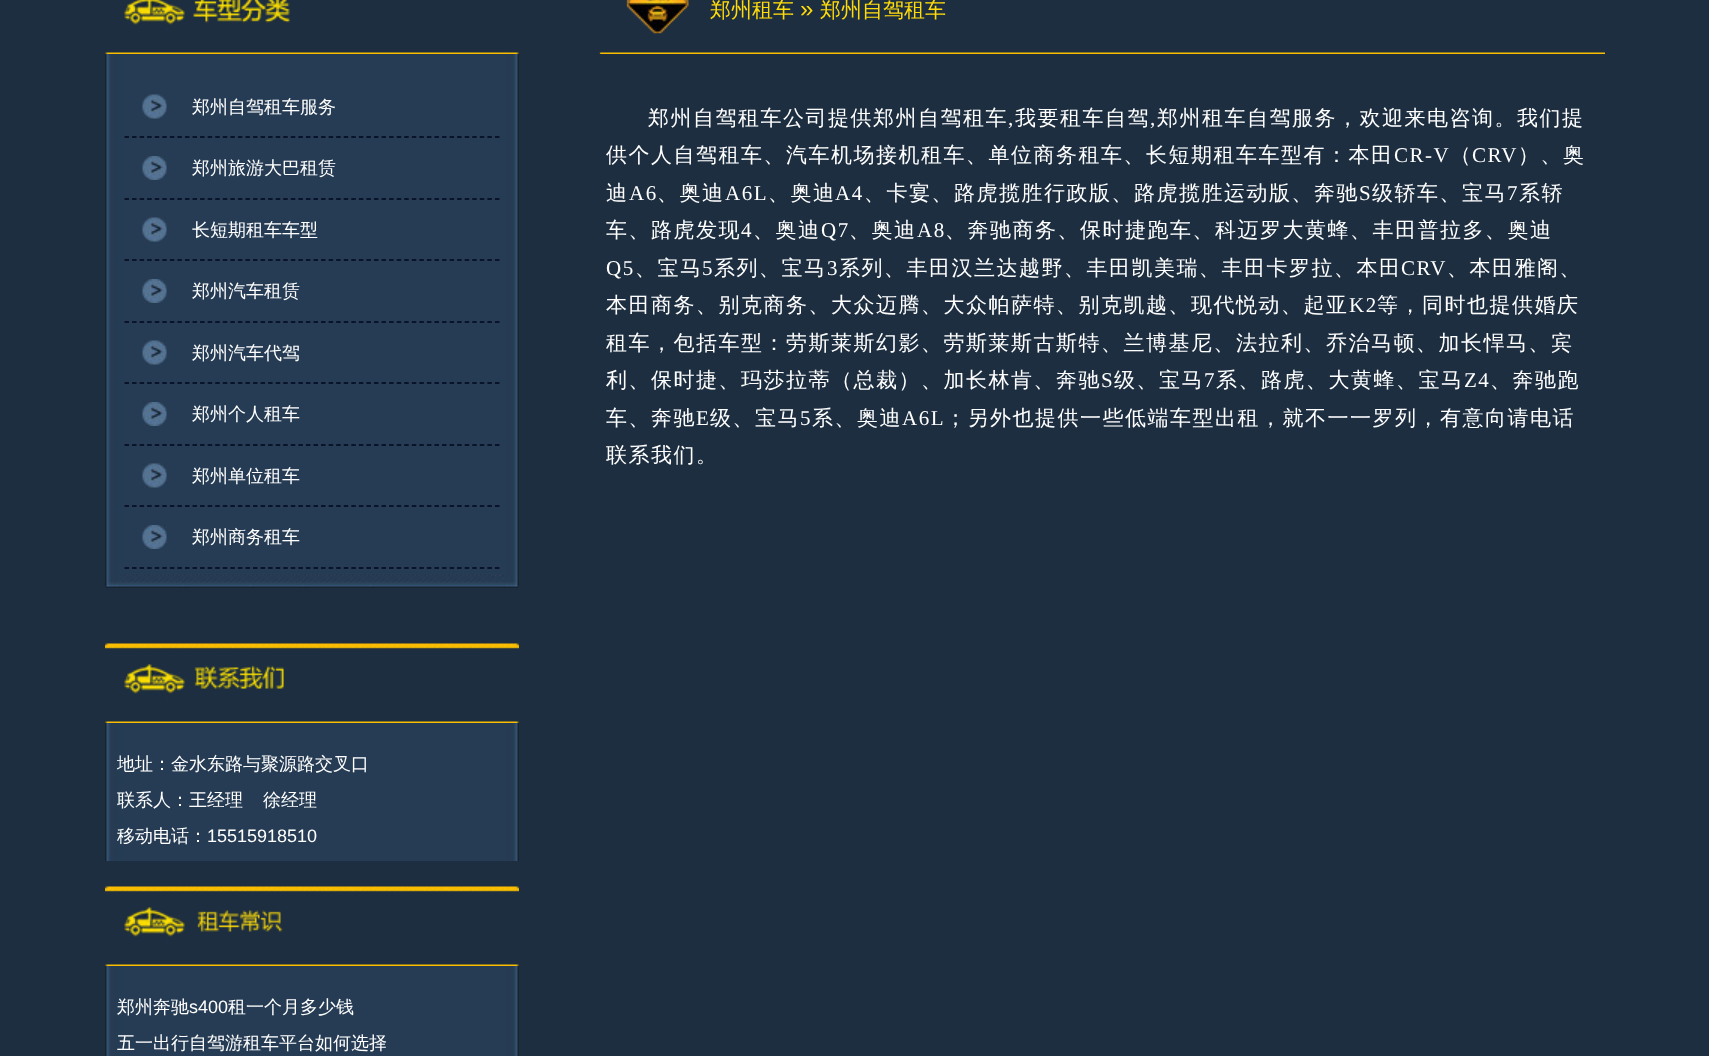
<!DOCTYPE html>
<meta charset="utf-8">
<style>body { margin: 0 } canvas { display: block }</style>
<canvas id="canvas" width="1709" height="1056"></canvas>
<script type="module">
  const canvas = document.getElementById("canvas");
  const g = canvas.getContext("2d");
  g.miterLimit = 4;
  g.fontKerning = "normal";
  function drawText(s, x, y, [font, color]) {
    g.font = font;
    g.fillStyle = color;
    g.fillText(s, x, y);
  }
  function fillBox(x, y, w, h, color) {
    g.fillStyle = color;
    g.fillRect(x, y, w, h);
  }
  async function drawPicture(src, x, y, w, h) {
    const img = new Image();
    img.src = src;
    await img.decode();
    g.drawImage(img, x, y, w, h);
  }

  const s1 = ["500 18px WenQuanYi Zen Hei", "#FFFFFF"];
  const s2 = ["18px Liberation Sans", "#FFFFFF"];
  const s3 = ["500 21px WenQuanYi Zen Hei", "#FFDB0A"];
  const s4 = ["24px Liberation Sans", "#FFDB0A"];
  const s5 = ["500 21px WenQuanYi Zen Hei", "#FFFFFF"];
  const s6 = ["21px Liberation Serif", "#FFFFFF"];

  fillBox(0, 0, 1709, 1056, "#1D2E40");
  await drawPicture("pic1.png", 105, 0, 414, 54);
  await drawPicture("pic2.png", 105, 54, 414, 519);
  await drawPicture("pic3.png", 142, 94, 25, 25);
  g.beginPath();
  g.moveTo(124.5, 137);
  g.lineTo(499.5, 137);
  g.strokeStyle = "#00061C";
  g.lineWidth = 1.5;
  g.setLineDash([4.5, 3.06]);
  g.stroke();
  drawText("郑州自驾租车服务", 192, 113, s1);
  await drawPicture("pic4.png", 142, 156, 25, 24);
  g.beginPath();
  g.moveTo(124.5, 199);
  g.lineTo(499.5, 199);
  g.stroke();
  drawText("郑州旅游大巴租赁", 192, 174, s1);
  await drawPicture("pic3.png", 142, 217, 25, 25);
  g.beginPath();
  g.moveTo(124.5, 260);
  g.lineTo(499.5, 260);
  g.stroke();
  drawText("长短期租车车型", 192, 236, s1);
  await drawPicture("pic4.png", 142, 279, 25, 24);
  g.beginPath();
  g.moveTo(124.5, 322);
  g.lineTo(499.5, 322);
  g.stroke();
  drawText("郑州汽车租赁", 192, 297, s1);
  await drawPicture("pic3.png", 142, 340, 25, 25);
  g.beginPath();
  g.moveTo(124.5, 383);
  g.lineTo(499.5, 383);
  g.stroke();
  drawText("郑州汽车代驾", 192, 359, s1);
  await drawPicture("pic4.png", 142, 402, 25, 24);
  g.beginPath();
  g.moveTo(124.5, 445);
  g.lineTo(499.5, 445);
  g.stroke();
  drawText("郑州个人租车", 192, 420, s1);
  await drawPicture("pic3.png", 142, 463, 25, 25);
  g.beginPath();
  g.moveTo(124.5, 506);
  g.lineTo(499.5, 506);
  g.stroke();
  drawText("郑州单位租车", 192, 482, s1);
  await drawPicture("pic4.png", 142, 525, 25, 24);
  g.beginPath();
  g.moveTo(124.5, 568);
  g.lineTo(499.5, 568);
  g.stroke();
  drawText("郑州商务租车", 192, 543, s1);
  await drawPicture("pic5.png", 105, 573, 414, 15);
  await drawPicture("pic6.png", 105, 643, 414, 80);
  await drawPicture("pic7.png", 105, 723, 414, 138);
  drawText("地址：金水东路与聚源路交叉口", 117, 770, s1);
  drawText("联系人：王经理", 117, 806, s1);
  drawText("徐经理", 263, 806, s1);
  drawText("移动电话：", 117, 842, s1);
  drawText("15515918510", 207, 842, s2);
  await drawPicture("pic8.png", 105, 886, 414, 80);
  await drawPicture("pic9.png", 105, 966, 414, 90);
  drawText("郑州奔驰", 117, 1013, s1);
  drawText("s400", 189, 1013, s2);
  drawText("租一个月多少钱", 228, 1013, s1);
  drawText("五一出行自驾游租车平台如何选择", 117, 1049, s1);
  await drawPicture("pic10.png", 599, 0, 1006, 54);
  drawText("郑州租车", 710, 17, s3);
  drawText("»", 800, 17, s4);
  drawText("郑州自驾租车", 820, 17, s3);
  g.letterSpacing = "1.5px";
  drawText("郑州自驾租车公司提供郑州自驾租车", 648, 125, s5);
  drawText(",", 1008, 125, s6);
  drawText("我要租车自驾", 1015, 125, s5);
  drawText(",", 1150, 125, s6);
  drawText("郑州租车自驾服务，欢迎来电咨询。我们提", 1157, 125, s5);
  drawText("供个人自驾租车、汽车机场接机租车、单位商务租车、长短期租车车型有：本田", 606, 162, s5);
  drawText("CR-V", 1394, 162, s6);
  drawText("（", 1450, 162, s5);
  drawText("CRV", 1472, 162, s6);
  drawText("）、奥", 1518, 162, s5);
  drawText("迪", 606, 200, s5);
  drawText("A6", 629, 200, s6);
  drawText("、奥迪", 657, 200, s5);
  drawText("A6L", 725, 200, s6);
  drawText("、奥迪", 768, 200, s5);
  drawText("A4", 835, 200, s6);
  drawText("、卡宴、路虎揽胜行政版、路虎揽胜运动版、奔驰", 864, 200, s5);
  drawText("S", 1359, 200, s6);
  drawText("级轿车、宝马", 1372, 200, s5);
  drawText("7", 1507, 200, s6);
  drawText("系轿", 1519, 200, s5);
  drawText("车、路虎发现", 606, 237, s5);
  drawText("4", 741, 237, s6);
  drawText("、奥迪", 753, 237, s5);
  drawText("Q7", 821, 237, s6);
  drawText("、奥迪", 849, 237, s5);
  drawText("A8", 917, 237, s6);
  drawText("、奔驰商务、保时捷跑车、科迈罗大黄蜂、丰田普拉多、奥迪", 945, 237, s5);
  drawText("Q5", 606, 275, s6);
  drawText("、宝马", 635, 275, s5);
  drawText("5", 702, 275, s6);
  drawText("系列、宝马", 714, 275, s5);
  drawText("3", 827, 275, s6);
  drawText("系列、丰田汉兰达越野、丰田凯美瑞、丰田卡罗拉、本田", 839, 275, s5);
  drawText("CRV", 1401, 275, s6);
  drawText("、本田雅阁、", 1447, 275, s5);
  drawText("本田商务、别克商务、大众迈腾、大众帕萨特、别克凯越、现代悦动、起亚", 606, 312, s5);
  drawText("K2", 1349, 312, s6);
  drawText("等，同时也提供婚庆", 1377, 312, s5);
  drawText("租车，包括车型：劳斯莱斯幻影、劳斯莱斯古斯特、兰博基尼、法拉利、乔治马顿、加长悍马、宾", 606, 350, s5);
  drawText("利、保时捷、玛莎拉蒂（总裁）、加长林肯、奔驰", 606, 387, s5);
  drawText("S", 1101, 387, s6);
  drawText("级、宝马", 1114, 387, s5);
  drawText("7", 1204, 387, s6);
  drawText("系、路虎、大黄蜂、宝马", 1216, 387, s5);
  drawText("Z4", 1464, 387, s6);
  drawText("、奔驰跑", 1490, 387, s5);
  drawText("车、奔驰", 606, 425, s5);
  drawText("E", 696, 425, s6);
  drawText("级、宝马", 710, 425, s5);
  drawText("5", 800, 425, s6);
  drawText("系、奥迪", 812, 425, s5);
  drawText("A6L", 902, 425, s6);
  drawText("；另外也提供一些低端车型出租，就不一一罗列，有意向请电话", 945, 425, s5);
  drawText("联系我们。", 606, 462, s5);
</script>
